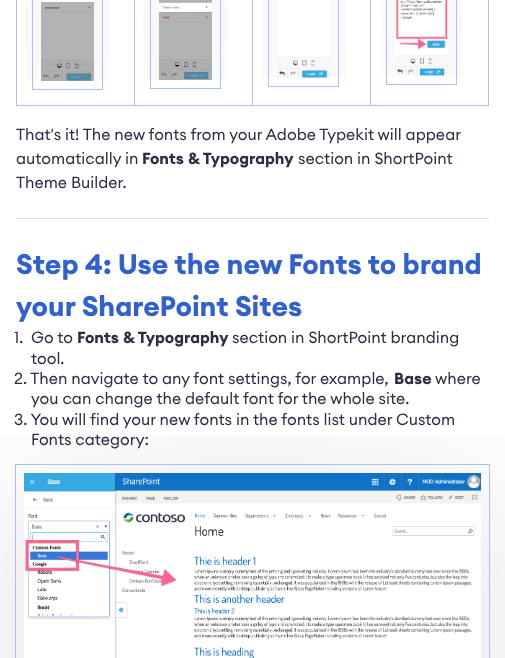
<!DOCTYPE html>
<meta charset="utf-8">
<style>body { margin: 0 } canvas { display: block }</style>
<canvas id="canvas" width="505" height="658"></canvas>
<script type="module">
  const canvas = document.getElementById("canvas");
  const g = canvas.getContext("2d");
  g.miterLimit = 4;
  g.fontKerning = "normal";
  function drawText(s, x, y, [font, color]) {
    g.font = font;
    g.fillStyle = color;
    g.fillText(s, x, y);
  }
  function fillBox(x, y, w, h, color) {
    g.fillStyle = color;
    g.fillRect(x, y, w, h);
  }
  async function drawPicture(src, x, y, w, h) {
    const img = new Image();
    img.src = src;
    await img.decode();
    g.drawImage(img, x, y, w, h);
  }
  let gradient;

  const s1 = ["16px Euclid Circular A", "#2B2F45"];
  const s2 = ["bold 16px Euclid Circular A", "#2B2F45"];
  const s3 = ["bold 28px Euclid Circular A", "#3161D1"];

  fillBox(0, 0, 505, 658, "#FFFFFF");
  fillBox(488, 0, 1, 106, "#A4C2F4");
  fillBox(370, 105, 119, 1, "#A4C2F4");
  fillBox(370, 0, 1, 106, "#A4C2F4");
  fillBox(252, 105, 119, 1, "#A4C2F4");
  fillBox(252, 0, 1, 106, "#A4C2F4");
  fillBox(134, 105, 119, 1, "#A4C2F4");
  fillBox(134, 0, 1, 106, "#A4C2F4");
  fillBox(16, 105, 119, 1, "#A4C2F4");
  fillBox(16, 0, 1, 106, "#A4C2F4");
  await drawPicture("pic1.png", 25, 0, 85, 81);
  g.strokeStyle = "#A4C2F4";
  g.strokeRect(32.5, -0.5, 70, 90);
  await drawPicture("pic2.png", 143, 0, 85, 80);
  g.strokeRect(150.5, -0.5, 70, 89);
  await drawPicture("pic3.png", 261, 0, 85, 78);
  g.strokeRect(268.5, -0.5, 70, 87);
  await drawPicture("pic4.png", 381, 0, 81, 76);
  g.strokeRect(386.5, -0.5, 70, 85);
  drawText("That's it! The new fonts from your Adobe Typekit will appear", 16, 140, s1);
  drawText("automatically in", 16, 164, s1);
  drawText("Fonts & Typography", 142, 164, s2);
  drawText("section in ShortPoint", 298, 164, s1);
  drawText("Theme Builder.", 16, 188, s1);
  fillBox(16, 218, 473, 1, "#DCDCDC");
  drawText("Step 4: Use the new Fonts to brand", 16, 274, s3);
  drawText("your SharePoint Sites", 16, 316, s3);
  drawText("1.", 14, 343, s1);
  drawText("Go to", 31, 343, s1);
  drawText("Fonts & Typography", 77, 343, s2);
  drawText("section in ShortPoint branding", 232, 343, s1);
  drawText("tool.", 31, 364, s1);
  drawText("2. Then navigate to any font settings, for example,", 14, 384, s1);
  drawText("Base", 394, 384, s2);
  drawText("where", 435, 384, s1);
  drawText("you can change the default font for the whole site.", 31, 404, s1);
  drawText("3. You will find your new fonts in the fonts list under Custom", 14, 425, s1);
  drawText("Fonts category:", 31, 445, s1);
  await drawPicture("pic5.png", 0, 435, 505, 223);
  g.strokeRect(15.5, 464.5, 474, 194);
  g.save();
  g.beginPath();
  g.roundRect(448, 343, 32, 32, 4);
  g.clip();
  gradient = g.createLinearGradient(464, 374, 464, 404);
  gradient.addColorStop(0, "#FFFFFF");
  gradient.addColorStop(1, "#FFFFFF");
  g.fillStyle = gradient;
  g.fillRect(448, 374, 32, 1);
  g.restore();
</script>
